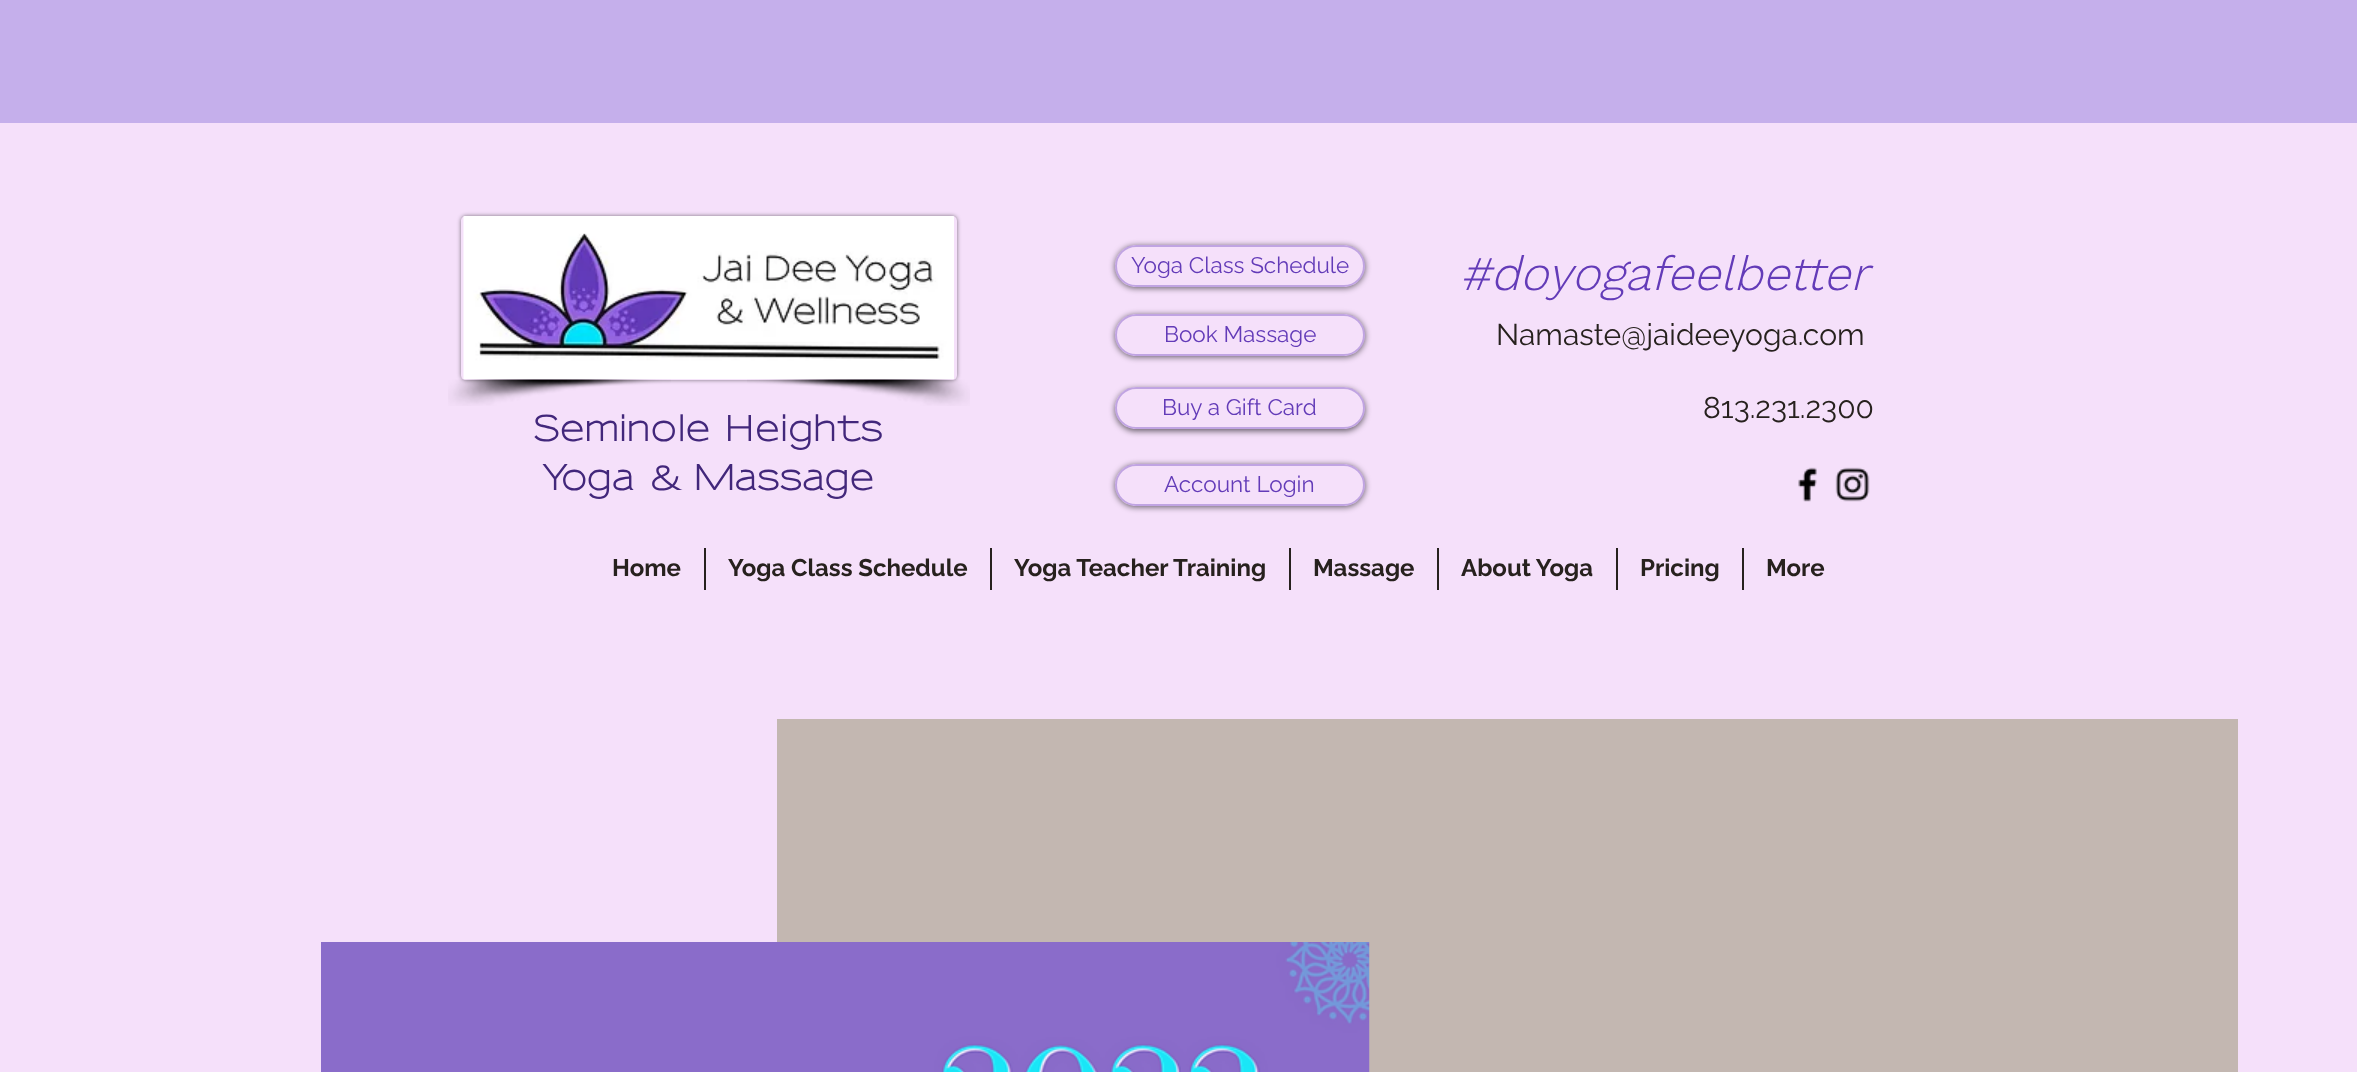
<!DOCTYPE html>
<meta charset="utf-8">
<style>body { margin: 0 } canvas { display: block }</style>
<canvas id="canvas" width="2357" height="1072"></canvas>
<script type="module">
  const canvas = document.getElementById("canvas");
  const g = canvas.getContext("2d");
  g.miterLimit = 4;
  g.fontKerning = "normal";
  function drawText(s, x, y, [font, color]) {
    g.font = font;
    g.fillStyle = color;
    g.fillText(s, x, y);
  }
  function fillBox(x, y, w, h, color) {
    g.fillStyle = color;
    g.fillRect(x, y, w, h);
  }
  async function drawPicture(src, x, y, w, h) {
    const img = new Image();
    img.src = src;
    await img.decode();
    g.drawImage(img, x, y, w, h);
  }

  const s1 = ["22.5px Raleway", "#633BB8"];
  const s2 = ["italic 300 48px Work Sans", "#633BB8"];
  const s3 = ["30px Raleway", "#27211E"];
  const s4 = ["bold 34.5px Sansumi", "#42277B"];
  const s5 = ["bold 24px Raleway", "#27211E"];

  fillBox(0, 0, 2357, 1072, "#F5E0FA");
  fillBox(0, 0, 2357, 123, "#C5AFEB");
  g.save();
  g.beginPath();
  g.moveTo(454, 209);
  g.lineTo(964, 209);
  g.lineTo(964, 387);
  g.lineTo(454, 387);
  g.closePath();
  g.moveTo(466, 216);
  g.lineTo(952, 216);
  g.bezierCurveTo(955, 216, 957, 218, 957, 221);
  g.lineTo(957, 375);
  g.bezierCurveTo(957, 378, 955, 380, 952, 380);
  g.lineTo(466, 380);
  g.bezierCurveTo(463, 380, 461, 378, 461, 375);
  g.lineTo(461, 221);
  g.bezierCurveTo(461, 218, 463, 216, 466, 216);
  g.closePath();
  g.clip("evenodd");
  g.fillStyle = "rgba(0, 0, 0, 0.5)";
  g.filter = "blur(2px)";
  g.beginPath();
  g.roundRect(461, 216, 496, 164, 5);
  g.fill();
  g.filter = "none";
  g.restore();
  await drawPicture("pic1.png", 463, 216, 491, 164);
  await drawPicture("pic2.png", 448, 379, 223, 27);
  await drawPicture("pic3.png", 747, 379, 223, 27);
  g.save();
  g.beginPath();
  g.moveTo(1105, 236);
  g.lineTo(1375, 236);
  g.lineTo(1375, 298);
  g.lineTo(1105, 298);
  g.closePath();
  g.moveTo(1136, 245);
  g.lineTo(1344, 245);
  g.bezierCurveTo(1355.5, 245, 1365, 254.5, 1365, 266);
  g.bezierCurveTo(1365, 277.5, 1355.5, 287, 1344, 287);
  g.lineTo(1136, 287);
  g.bezierCurveTo(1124.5, 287, 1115, 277.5, 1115, 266);
  g.bezierCurveTo(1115, 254.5, 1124.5, 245, 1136, 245);
  g.closePath();
  g.clip("evenodd");
  g.fillStyle = "rgba(0, 0, 0, 0.6)";
  g.filter = "blur(3px)";
  g.beginPath();
  g.roundRect(1115, 246, 250, 42, 21);
  g.fill();
  g.filter = "none";
  g.restore();
  g.beginPath();
  g.roundRect(1116, 246, 248, 40, 20);
  g.strokeStyle = "rgba(99, 59, 184, 0.36)";
  g.lineWidth = 2;
  g.stroke();
  drawText("Yoga Class Schedule", 1131, 273, s1);
  drawText("#doyogafeelbetter", 1460, 290, s2);
  g.save();
  g.beginPath();
  g.moveTo(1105, 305);
  g.lineTo(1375, 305);
  g.lineTo(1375, 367);
  g.lineTo(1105, 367);
  g.closePath();
  g.moveTo(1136, 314);
  g.lineTo(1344, 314);
  g.bezierCurveTo(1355.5, 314, 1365, 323.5, 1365, 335);
  g.bezierCurveTo(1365, 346.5, 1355.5, 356, 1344, 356);
  g.lineTo(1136, 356);
  g.bezierCurveTo(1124.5, 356, 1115, 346.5, 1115, 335);
  g.bezierCurveTo(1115, 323.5, 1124.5, 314, 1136, 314);
  g.closePath();
  g.clip("evenodd");
  g.fillStyle = "rgba(0, 0, 0, 0.6)";
  g.filter = "blur(3px)";
  g.beginPath();
  g.roundRect(1115, 315, 250, 42, 21);
  g.fill();
  g.filter = "none";
  g.restore();
  g.beginPath();
  g.roundRect(1116, 315, 248, 40, 20);
  g.stroke();
  drawText("Book Massage", 1164, 342, s1);
  drawText("Namaste@jaideeyoga.com", 1496, 345, s3);
  g.save();
  g.beginPath();
  g.moveTo(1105, 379);
  g.lineTo(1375, 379);
  g.lineTo(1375, 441);
  g.lineTo(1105, 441);
  g.closePath();
  g.moveTo(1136, 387);
  g.lineTo(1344, 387);
  g.bezierCurveTo(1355.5, 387, 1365, 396.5, 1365, 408);
  g.bezierCurveTo(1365, 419.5, 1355.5, 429, 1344, 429);
  g.lineTo(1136, 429);
  g.bezierCurveTo(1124.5, 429, 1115, 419.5, 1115, 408);
  g.bezierCurveTo(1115, 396.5, 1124.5, 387, 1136, 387);
  g.closePath();
  g.clip("evenodd");
  g.fillStyle = "rgba(0, 0, 0, 0.6)";
  g.filter = "blur(3px)";
  g.beginPath();
  g.roundRect(1115, 389, 250, 42, 21);
  g.fill();
  g.filter = "none";
  g.restore();
  g.beginPath();
  g.roundRect(1116, 388, 248, 40, 20);
  g.stroke();
  drawText("Buy a Gift Card", 1162, 415, s1);
  drawText("813.231.2300", 1703, 418, s3);
  g.wordSpacing = "5px";
  drawText("Seminole Heights", 533, 441, s4);
  g.wordSpacing = "0px";
  drawText("Yoga", 543, 490, s4);
  g.wordSpacing = "2px";
  drawText("& Massage", 649, 490, s4);
  g.save();
  g.beginPath();
  g.moveTo(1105, 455);
  g.lineTo(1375, 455);
  g.lineTo(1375, 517);
  g.lineTo(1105, 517);
  g.closePath();
  g.moveTo(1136, 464);
  g.lineTo(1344, 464);
  g.bezierCurveTo(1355.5, 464, 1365, 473.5, 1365, 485);
  g.bezierCurveTo(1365, 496.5, 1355.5, 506, 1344, 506);
  g.lineTo(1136, 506);
  g.bezierCurveTo(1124.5, 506, 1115, 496.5, 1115, 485);
  g.bezierCurveTo(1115, 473.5, 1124.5, 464, 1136, 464);
  g.closePath();
  g.clip("evenodd");
  g.fillStyle = "rgba(0, 0, 0, 0.6)";
  g.filter = "blur(3px)";
  g.beginPath();
  g.roundRect(1115, 465, 250, 42, 21);
  g.fill();
  g.filter = "none";
  g.restore();
  g.beginPath();
  g.roundRect(1116, 465, 248, 40, 20);
  g.stroke();
  g.wordSpacing = "0px";
  drawText("Account Login", 1164, 492, s1);
  await drawPicture("pic4.png", 1798, 467, 19, 35);
  await drawPicture("pic5.png", 1835, 467, 35, 35);
  drawText("Home", 612, 576, s5);
  fillBox(704, 548, 2, 42, "#27211E");
  drawText("Yoga Class Schedule", 728, 576, s5);
  fillBox(990, 548, 2, 42, "#27211E");
  drawText("Yoga Teacher Training", 1014, 576, s5);
  fillBox(1289, 548, 2, 42, "#27211E");
  drawText("Massage", 1313, 576, s5);
  fillBox(1437, 548, 2, 42, "#27211E");
  drawText("About Yoga", 1461, 576, s5);
  fillBox(1616, 548, 2, 42, "#27211E");
  drawText("Pricing", 1640, 576, s5);
  fillBox(1742, 548, 2, 42, "#27211E");
  drawText("More", 1766, 576, s5);
  fillBox(777, 719, 1461, 353, "#C3B7B1");
  await drawPicture("pic6.png", 321, 942, 1049, 130);
</script>
